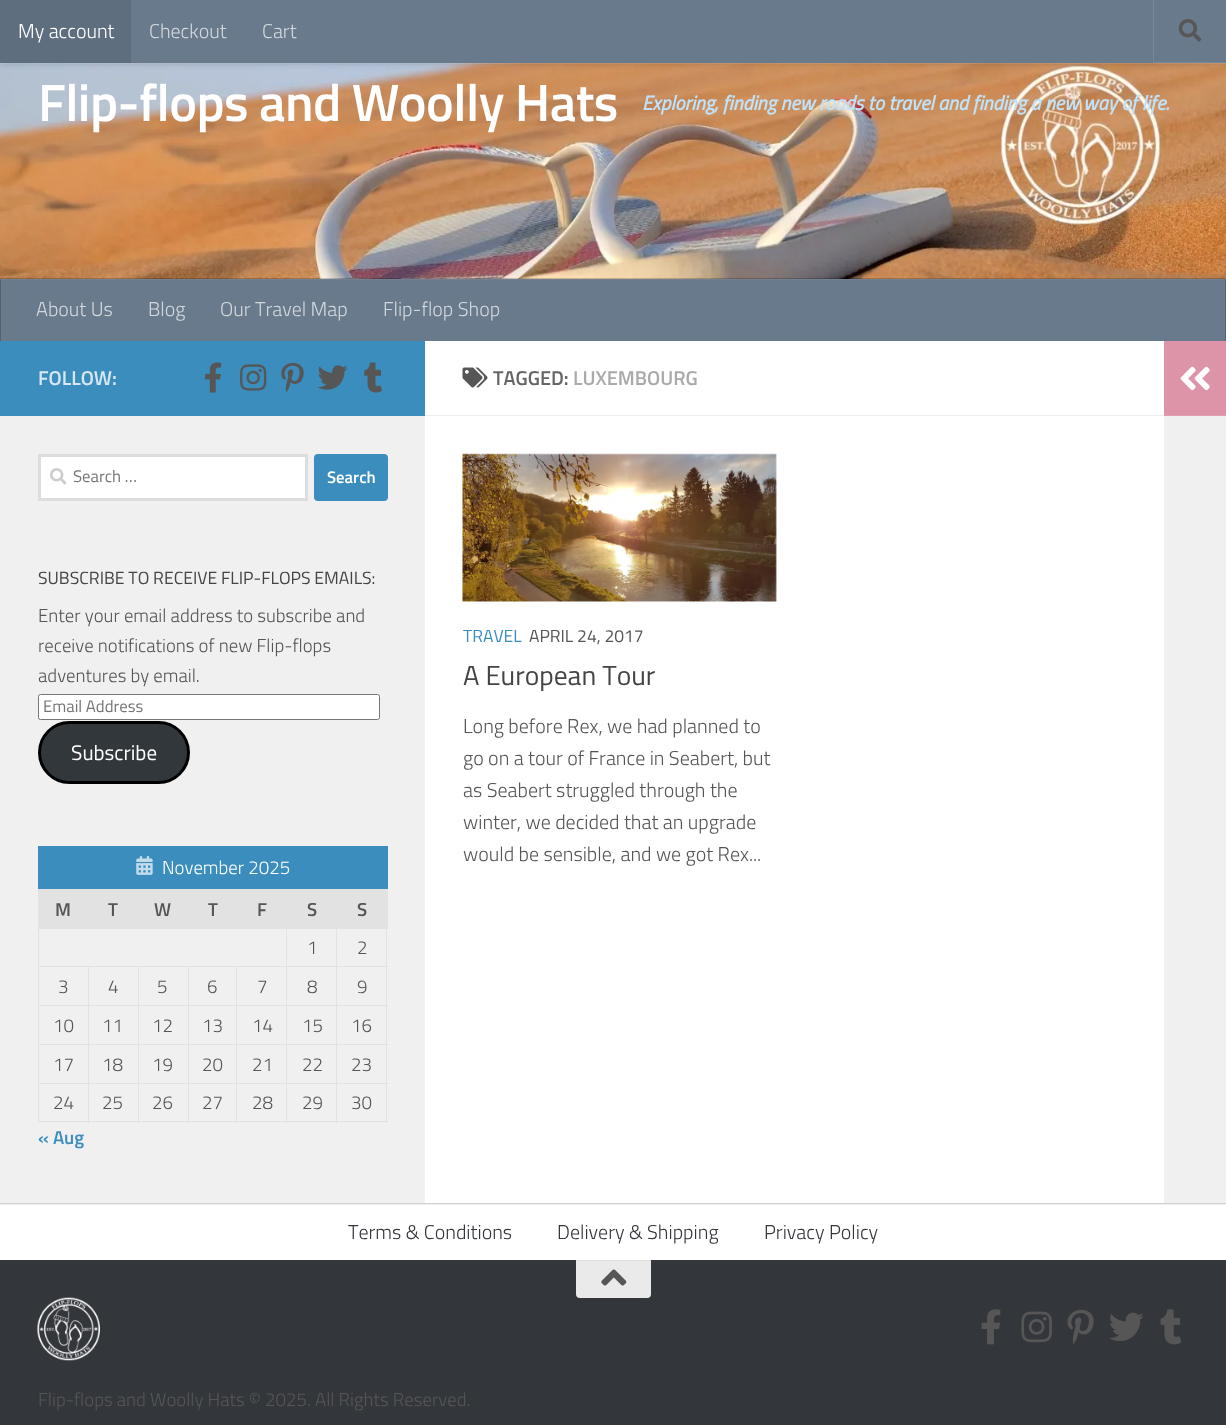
<!DOCTYPE html>
<meta charset="utf-8">
<style>body { margin: 0 } canvas { display: block }</style>
<canvas id="canvas" width="1226" height="1425"></canvas>
<script type="module">
  const canvas = document.getElementById("canvas");
  const g = canvas.getContext("2d");
  g.miterLimit = 4;
  g.fontKerning = "normal";
  function drawText(s, x, y, [font, color]) {
    g.font = font;
    g.fillStyle = color;
    g.fillText(s, x, y);
  }
  function fillBox(x, y, w, h, color) {
    g.fillStyle = color;
    g.fillRect(x, y, w, h);
  }
  function fillRounded(x, y, w, h, r, color) {
    g.fillStyle = color;
    g.beginPath();
    g.roundRect(x, y, w, h, r);
    g.fill();
  }
  async function drawPicture(src, x, y, w, h) {
    const img = new Image();
    img.src = src;
    await img.decode();
    g.drawImage(img, x, y, w, h);
  }

  const s1 = ["300 20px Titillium", "#FFFFFF"];
  const s2 = ["300 20px Titillium", "#D2D7DD"];
  const s3 = ["600 52.5px Titillium", "#FFFFFF"];
  const s4 = ["italic bold 20px Titillium", "#C0E2F9"];
  const s5 = ["600 20px Titillium", "#D8E8F2"];
  const s6 = ["16.75px Titillium", "#757575"];
  const s7 = ["600 16.75px Titillium", "#FFFFFF"];
  const s8 = ["17.6px Titillium", "#444444"];
  const s9 = ["300 18.75px Titillium", "#565656"];
  const s10 = ["21px Titillium", "#FFFFFF"];
  const s11 = ["300 18.75px Titillium", "#FFFFFF"];
  const s12 = ["600 18.75px Titillium", "#565656"];
  const s13 = ["600 18.75px Titillium", "#3B8DBD"];
  const s14 = ["600 20px Titillium", "#666666"];
  const s15 = ["600 20px Titillium", "#AAAAAA"];
  const s16 = ["17.5px Titillium", "#3B8DBD"];
  const s17 = ["17.5px Titillium", "#565656"];
  const s18 = ["27.5px Titillium", "#444444"];
  const s19 = ["300 20px Titillium", "#565656"];
  const s20 = ["300 20px Titillium", "#33363B"];

  fillBox(0, 0, 1226, 1425, "#EAEAEA");
  await drawPicture("pic2.png", 0, 63, 1226, 216);
  fillBox(0, 63, 1226, 1, "rgba(255, 255, 255, 0.15)");
  g.fillStyle = "rgba(0, 0, 0, 0.2)";
  g.filter = "blur(3px)";
  g.beginPath();
  g.rect(0, 0, 1226, 63);
  g.fill();
  g.filter = "none";
  fillBox(131, 0, 1095, 63, "#697A8C");
  fillBox(0, 0, 131, 63, "#5F6E7E");
  drawText("My account", 18, 38, s1);
  drawText("Checkout", 149, 38, s2);
  drawText("Cart", 262, 38, s2);
  g.fillStyle = "#788798";
  g.beginPath();
  g.moveTo(1153, 0);
  g.lineTo(1153, 63);
  g.lineTo(1225, 63);
  g.lineTo(1225, 62);
  g.lineTo(1154, 62);
  g.lineTo(1154, 0);
  g.closePath();
  g.fill();
  await drawPicture("pic1.png", 1178, 19, 24, 23);
  g.letterSpacing = "-0.6px";
  drawText("Flip-flops and Woolly Hats", 38, 121, s3);
  g.letterSpacing = "0px";
  drawText("Exploring, finding new roads to travel and finding a new way of life.", 642, 110, s4);
  fillBox(0, 278, 1226, 1, "rgba(0, 0, 0, 0.2)");
  g.fillStyle = "rgba(0, 0, 0, 0.1)";
  g.filter = "blur(0.5px)";
  g.beginPath();
  g.rect(0, 343, 1226, 861);
  g.fill();
  g.filter = "none";
  fillBox(1, 280, 1224, 61, "#697A8C");
  fillBox(0, 279, 1226, 1, "#718192");
  fillBox(1225, 279, 1, 62, "#546270");
  fillBox(1225, 279, 1, 1, "#5D6A77");
  fillBox(0, 279, 1, 62, "#546270");
  fillBox(0, 279, 1, 1, "#5D6A77");
  drawText("About Us", 36, 316, s2);
  drawText("Blog", 148, 316, s2);
  drawText("Our Travel Map", 220, 316, s2);
  drawText("Flip-flop Shop", 383, 316, s2);
  fillBox(425, 341, 739, 862, "#FFFFFF");
  fillBox(0, 341, 425, 75, "#3B8DBD");
  drawText("FOLLOW:", 38, 385, s5);
  await drawPicture("pic3.png", 205, 362, 17, 31);
  await drawPicture("pic4.png", 240, 364, 27, 27);
  await drawPicture("pic5.png", 281, 362, 23, 30);
  await drawPicture("pic6.png", 317, 365, 31, 25);
  await drawPicture("pic7.png", 364, 362, 18, 31);
  fillBox(0, 416, 425, 787, "#F0F0F0");
  g.fillStyle = "#FFFFFF";
  g.beginPath();
  g.rect(39.5, 455.5, 267, 44);
  g.fill();
  g.strokeStyle = "#DDDDDD";
  g.lineWidth = 3;
  g.stroke();
  await drawPicture("pic8.png", 50, 468, 17, 17);
  drawText("Search …", 73, 482, s6);
  fillRounded(314, 454, 74, 47, 4, "#3B8DBD");
  drawText("Search", 327, 483, s7);
  drawText("SUBSCRIBE TO RECEIVE FLIP-FLOPS EMAILS:", 38, 584, s8);
  drawText("Enter your email address to subscribe and", 38, 622, s9);
  drawText("receive notifications of new Flip-flops", 38, 652, s9);
  drawText("adventures by email.", 38, 682, s9);
  g.fillStyle = "#FFFFFF";
  g.beginPath();
  g.roundRect(38.5, 694.5, 341, 25, 2);
  g.fill();
  g.strokeStyle = "#767676";
  g.lineWidth = 1;
  g.stroke();
  drawText("Email Address", 43, 712, s6);
  g.fillStyle = "#32373C";
  g.beginPath();
  g.roundRect(39.5, 722.5, 149, 60, 30);
  g.fill();
  g.strokeStyle = "#000000";
  g.lineWidth = 3;
  g.stroke();
  drawText("Subscribe", 71, 760, s10);
  fillBox(38, 846, 350, 43, "#3B8DBD");
  await drawPicture("pic9.png", 136, 856, 17, 19);
  drawText("November 2025", 162, 874, s11);
  fillBox(39, 890, 349, 38, "#E2E2E2");
  fillBox(38, 889, 350, 1, "#E2E2E2");
  fillBox(336, 928, 52, 1, "#E2E2E2");
  fillBox(336, 966, 52, 1, "#E2E2E2");
  fillBox(336, 1005, 52, 1, "#E2E2E2");
  fillBox(336, 1044, 52, 1, "#E2E2E2");
  fillBox(336, 1083, 52, 1, "#E2E2E2");
  fillBox(386, 1083, 1, 40, "#E2E2E2");
  fillBox(336, 1121, 52, 1, "#E2E2E2");
  fillBox(336, 1083, 1, 40, "#E2E2E2");
  fillBox(286, 1083, 52, 1, "#E2E2E2");
  fillBox(336, 1044, 1, 40, "#E2E2E2");
  fillBox(286, 1044, 52, 1, "#E2E2E2");
  fillBox(336, 1005, 1, 40, "#E2E2E2");
  fillBox(286, 1005, 52, 1, "#E2E2E2");
  fillBox(336, 966, 1, 40, "#E2E2E2");
  fillBox(286, 966, 52, 1, "#E2E2E2");
  fillBox(336, 928, 1, 40, "#E2E2E2");
  fillBox(286, 928, 52, 1, "#E2E2E2");
  fillBox(286, 1121, 52, 1, "#E2E2E2");
  fillBox(286, 1083, 1, 40, "#E2E2E2");
  fillBox(236, 1083, 52, 1, "#E2E2E2");
  fillBox(286, 1044, 1, 40, "#E2E2E2");
  fillBox(236, 1044, 52, 1, "#E2E2E2");
  fillBox(286, 1005, 1, 40, "#E2E2E2");
  fillBox(236, 1005, 52, 1, "#E2E2E2");
  fillBox(286, 966, 1, 40, "#E2E2E2");
  fillBox(236, 966, 52, 1, "#E2E2E2");
  fillBox(286, 928, 1, 40, "#E2E2E2");
  fillBox(38, 928, 250, 1, "#E2E2E2");
  fillBox(236, 1121, 52, 1, "#E2E2E2");
  fillBox(236, 1083, 1, 40, "#E2E2E2");
  fillBox(188, 1083, 50, 1, "#E2E2E2");
  fillBox(236, 1044, 1, 40, "#E2E2E2");
  fillBox(188, 1044, 50, 1, "#E2E2E2");
  fillBox(236, 1005, 1, 40, "#E2E2E2");
  fillBox(188, 1005, 50, 1, "#E2E2E2");
  fillBox(236, 966, 1, 40, "#E2E2E2");
  fillBox(188, 966, 50, 1, "#E2E2E2");
  fillBox(188, 1121, 50, 1, "#E2E2E2");
  fillBox(188, 1083, 1, 40, "#E2E2E2");
  fillBox(138, 1083, 51, 1, "#E2E2E2");
  fillBox(188, 1044, 1, 40, "#E2E2E2");
  fillBox(138, 1044, 51, 1, "#E2E2E2");
  fillBox(188, 1005, 1, 40, "#E2E2E2");
  fillBox(138, 1005, 51, 1, "#E2E2E2");
  fillBox(188, 966, 1, 40, "#E2E2E2");
  fillBox(138, 966, 51, 1, "#E2E2E2");
  fillBox(138, 1121, 51, 1, "#E2E2E2");
  fillBox(138, 1083, 1, 40, "#E2E2E2");
  fillBox(88, 1083, 51, 1, "#E2E2E2");
  fillBox(138, 1044, 1, 40, "#E2E2E2");
  fillBox(88, 1044, 51, 1, "#E2E2E2");
  fillBox(138, 1005, 1, 40, "#E2E2E2");
  fillBox(88, 1005, 51, 1, "#E2E2E2");
  fillBox(138, 966, 1, 40, "#E2E2E2");
  fillBox(88, 966, 51, 1, "#E2E2E2");
  fillBox(88, 1121, 51, 1, "#E2E2E2");
  fillBox(88, 1083, 1, 40, "#E2E2E2");
  fillBox(38, 1083, 51, 1, "#E2E2E2");
  fillBox(88, 1044, 1, 40, "#E2E2E2");
  fillBox(38, 1044, 51, 1, "#E2E2E2");
  fillBox(88, 1005, 1, 40, "#E2E2E2");
  fillBox(38, 1005, 51, 1, "#E2E2E2");
  fillBox(88, 966, 1, 40, "#E2E2E2");
  fillBox(38, 966, 51, 1, "#E2E2E2");
  fillBox(38, 1121, 51, 1, "#E2E2E2");
  fillBox(38, 1083, 1, 40, "#E2E2E2");
  fillBox(38, 1044, 1, 40, "#E2E2E2");
  fillBox(38, 1005, 1, 40, "#E2E2E2");
  fillBox(38, 966, 1, 40, "#E2E2E2");
  fillBox(38, 928, 1, 40, "#E2E2E2");
  fillBox(38, 889, 1, 40, "#E2E2E2");
  drawText("M", 55, 916, s12);
  drawText("T", 108, 916, s12);
  drawText("W", 154, 916, s12);
  drawText("T", 208, 916, s12);
  drawText("F", 257, 916, s12);
  drawText("S", 307, 916, s12);
  drawText("S", 357, 916, s12);
  drawText("1", 307, 954, s9);
  fillBox(386, 1044, 1, 40, "#E2E2E2");
  fillBox(386, 1005, 1, 40, "#E2E2E2");
  fillBox(386, 966, 1, 40, "#E2E2E2");
  fillBox(386, 928, 1, 40, "#E2E2E2");
  drawText("2", 357, 954, s9);
  drawText("3", 58, 993, s9);
  drawText("4", 108, 993, s9);
  drawText("5", 157, 993, s9);
  drawText("6", 207, 993, s9);
  drawText("7", 257, 993, s9);
  drawText("8", 307, 993, s9);
  drawText("9", 357, 993, s9);
  drawText("10", 53, 1032, s9);
  drawText("11", 102, 1032, s9);
  drawText("12", 152, 1032, s9);
  drawText("13", 202, 1032, s9);
  drawText("14", 252, 1032, s9);
  drawText("15", 302, 1032, s9);
  drawText("16", 351, 1032, s9);
  drawText("17", 53, 1071, s9);
  drawText("18", 102, 1071, s9);
  drawText("19", 152, 1071, s9);
  drawText("20", 202, 1071, s9);
  drawText("21", 252, 1071, s9);
  drawText("22", 302, 1071, s9);
  drawText("23", 351, 1071, s9);
  drawText("24", 53, 1109, s9);
  drawText("25", 102, 1109, s9);
  drawText("26", 152, 1109, s9);
  drawText("27", 202, 1109, s9);
  drawText("28", 252, 1109, s9);
  drawText("29", 302, 1109, s9);
  drawText("30", 351, 1109, s9);
  drawText("« Aug", 38, 1144, s13);
  fillBox(425, 415, 739, 1, "#EEEEEE");
  await drawPicture("pic10.png", 462, 367, 26, 21);
  drawText("TAGGED:", 493, 385, s14);
  drawText("LUXEMBOURG", 573, 385, s15);
  await drawPicture("pic11.png", 462, 453, 315, 149);
  drawText("TRAVEL", 463, 642, s16);
  drawText("APRIL 24, 2017", 529, 642, s17);
  drawText("A European Tour", 463, 685, s18);
  drawText("Long before Rex, we had planned to", 463, 733, s19);
  drawText("go on a tour of France in Seabert, but", 463, 765, s19);
  drawText("as Seabert struggled through the", 463, 797, s19);
  drawText("winter, we decided that an upgrade", 463, 829, s19);
  drawText("would be sensible, and we got Rex...", 463, 861, s19);
  fillBox(1164, 341, 62, 74, "#DD94A8");
  fillBox(1164, 415, 62, 1, "#E09FB1");
  await drawPicture("pic12.png", 1180, 366, 30, 25);
  fillBox(1164, 416, 62, 787, "#F0F0F0");
  fillBox(0, 1205, 1226, 55, "#FFFFFF");
  fillBox(0, 1204, 1226, 1, "#EEEEEE");
  drawText("Terms & Conditions", 348, 1239, s20);
  drawText("Delivery & Shipping", 557, 1239, s20);
  drawText("Privacy Policy", 764, 1239, s20);
  fillBox(0, 1260, 1226, 165, "#33363B");
  g.fillStyle = "#EAEAEA";
  g.beginPath();
  g.roundRect(576, 1260, 75, 38, [0, 0, 4, 4]);
  g.fill();
  fillBox(576, 1260, 75, 1, "#DEDEDE");
  await drawPicture("pic13.png", 601, 1269, 26, 17);
  await drawPicture("pic14.png", 981, 1309, 20, 36);
  await drawPicture("pic15.png", 1021, 1311, 31, 32);
  await drawPicture("pic16.png", 1067, 1309, 27, 35);
  await drawPicture("pic17.png", 1109, 1312, 35, 29);
  await drawPicture("pic18.png", 1160, 1309, 22, 36);
  await drawPicture("pic19.png", 37, 1297, 63, 64);
  drawText("Flip-flops and Woolly Hats © 2025. All Rights Reserved.", 38, 1406, s9);
</script>
